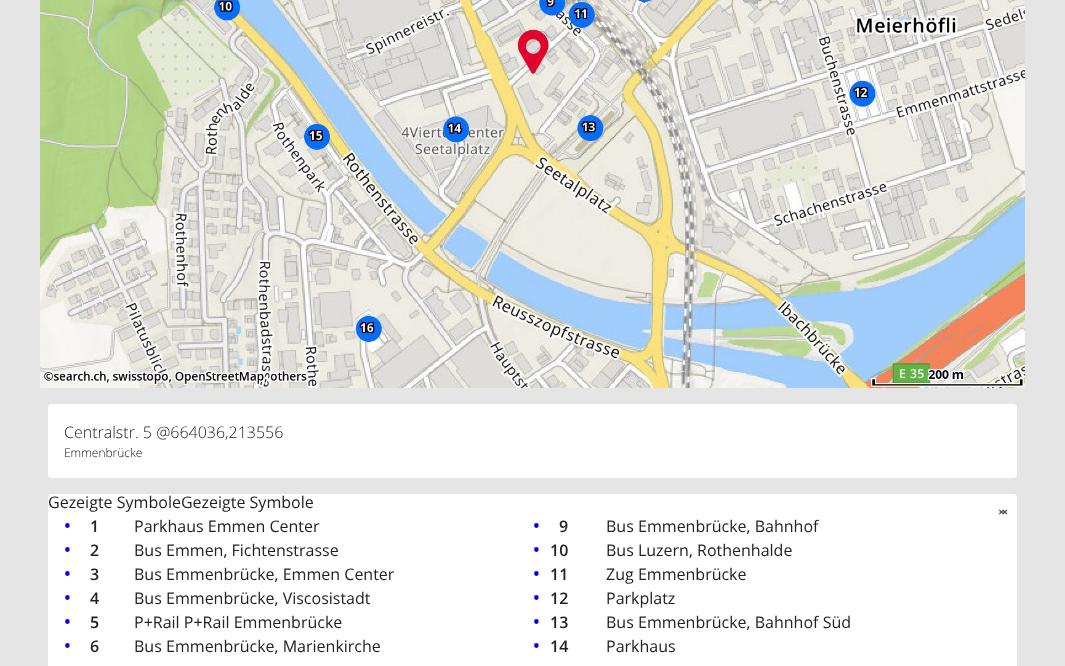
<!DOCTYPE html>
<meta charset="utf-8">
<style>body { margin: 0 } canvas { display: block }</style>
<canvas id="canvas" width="1065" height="666"></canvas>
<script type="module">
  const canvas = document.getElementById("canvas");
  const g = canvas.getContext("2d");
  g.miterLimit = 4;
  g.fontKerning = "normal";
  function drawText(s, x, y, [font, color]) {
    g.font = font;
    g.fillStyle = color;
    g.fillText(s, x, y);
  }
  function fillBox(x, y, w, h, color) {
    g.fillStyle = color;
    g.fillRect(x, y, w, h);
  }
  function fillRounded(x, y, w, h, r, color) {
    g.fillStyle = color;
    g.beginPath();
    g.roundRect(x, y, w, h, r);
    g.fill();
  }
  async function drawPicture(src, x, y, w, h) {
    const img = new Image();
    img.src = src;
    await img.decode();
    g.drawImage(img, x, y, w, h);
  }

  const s1 = ["300 16px Open Sans", "#222222"];
  const s2 = ["300 12px Open Sans", "#111111"];
  const s3 = ["16px Open Sans", "#222222"];
  const s4 = ["600 18px Open Sans", "#0606F6"];
  const s5 = ["600 16px Open Sans", "#222222"];

  fillBox(0, 0, 1065, 666, "#E5E5E5");
  await drawPicture("pic1.png", 40, 0, 985, 388);
  fillRounded(48, 404, 969, 74, 4, "#FFFFFF");
  drawText("Centralstr. 5 @664036,213556", 64, 438, s1);
  drawText("Emmenbrücke", 64, 457, s2);
  fillRounded(48, 494, 969, 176, 4, "#FFFFFF");
  drawText("Gezeigte SymboleGezeigte Symbole", 48, 508, s3);
  await drawPicture("pic2.png", 999, 509, 9, 6);
  await drawPicture("pic3.png", 999, 509, 9, 6);
  drawText("•", 64, 532, s4);
  drawText("1", 90, 532, s5);
  drawText("Parkhaus Emmen Center", 134, 532, s3);
  drawText("•", 64, 556, s4);
  drawText("2", 90, 556, s5);
  drawText("Bus Emmen, Fichtenstrasse", 134, 556, s3);
  drawText("•", 64, 580, s4);
  drawText("3", 90, 580, s5);
  drawText("Bus Emmenbrücke, Emmen Center", 134, 580, s3);
  drawText("•", 64, 604, s4);
  drawText("4", 90, 604, s5);
  drawText("Bus Emmenbrücke, Viscosistadt", 134, 604, s3);
  drawText("•", 64, 628, s4);
  drawText("5", 90, 628, s5);
  drawText("P+Rail P+Rail Emmenbrücke", 134, 628, s3);
  drawText("•", 64, 652, s4);
  drawText("6", 90, 652, s5);
  drawText("Bus Emmenbrücke, Marienkirche", 134, 652, s3);
  drawText("•", 533, 532, s4);
  drawText("9", 559, 532, s5);
  drawText("Bus Emmenbrücke, Bahnhof", 606, 532, s3);
  drawText("•", 533, 556, s4);
  drawText("10", 550, 556, s5);
  drawText("Bus Luzern, Rothenhalde", 606, 556, s3);
  drawText("•", 533, 580, s4);
  drawText("11", 550, 580, s5);
  drawText("Zug Emmenbrücke", 606, 580, s3);
  drawText("•", 533, 604, s4);
  drawText("12", 550, 604, s5);
  drawText("Parkplatz", 606, 604, s3);
  drawText("•", 533, 628, s4);
  drawText("13", 550, 628, s5);
  drawText("Bus Emmenbrücke, Bahnhof Süd", 606, 628, s3);
  drawText("•", 533, 652, s4);
  drawText("14", 550, 652, s5);
  drawText("Parkhaus", 606, 652, s3);
</script>
